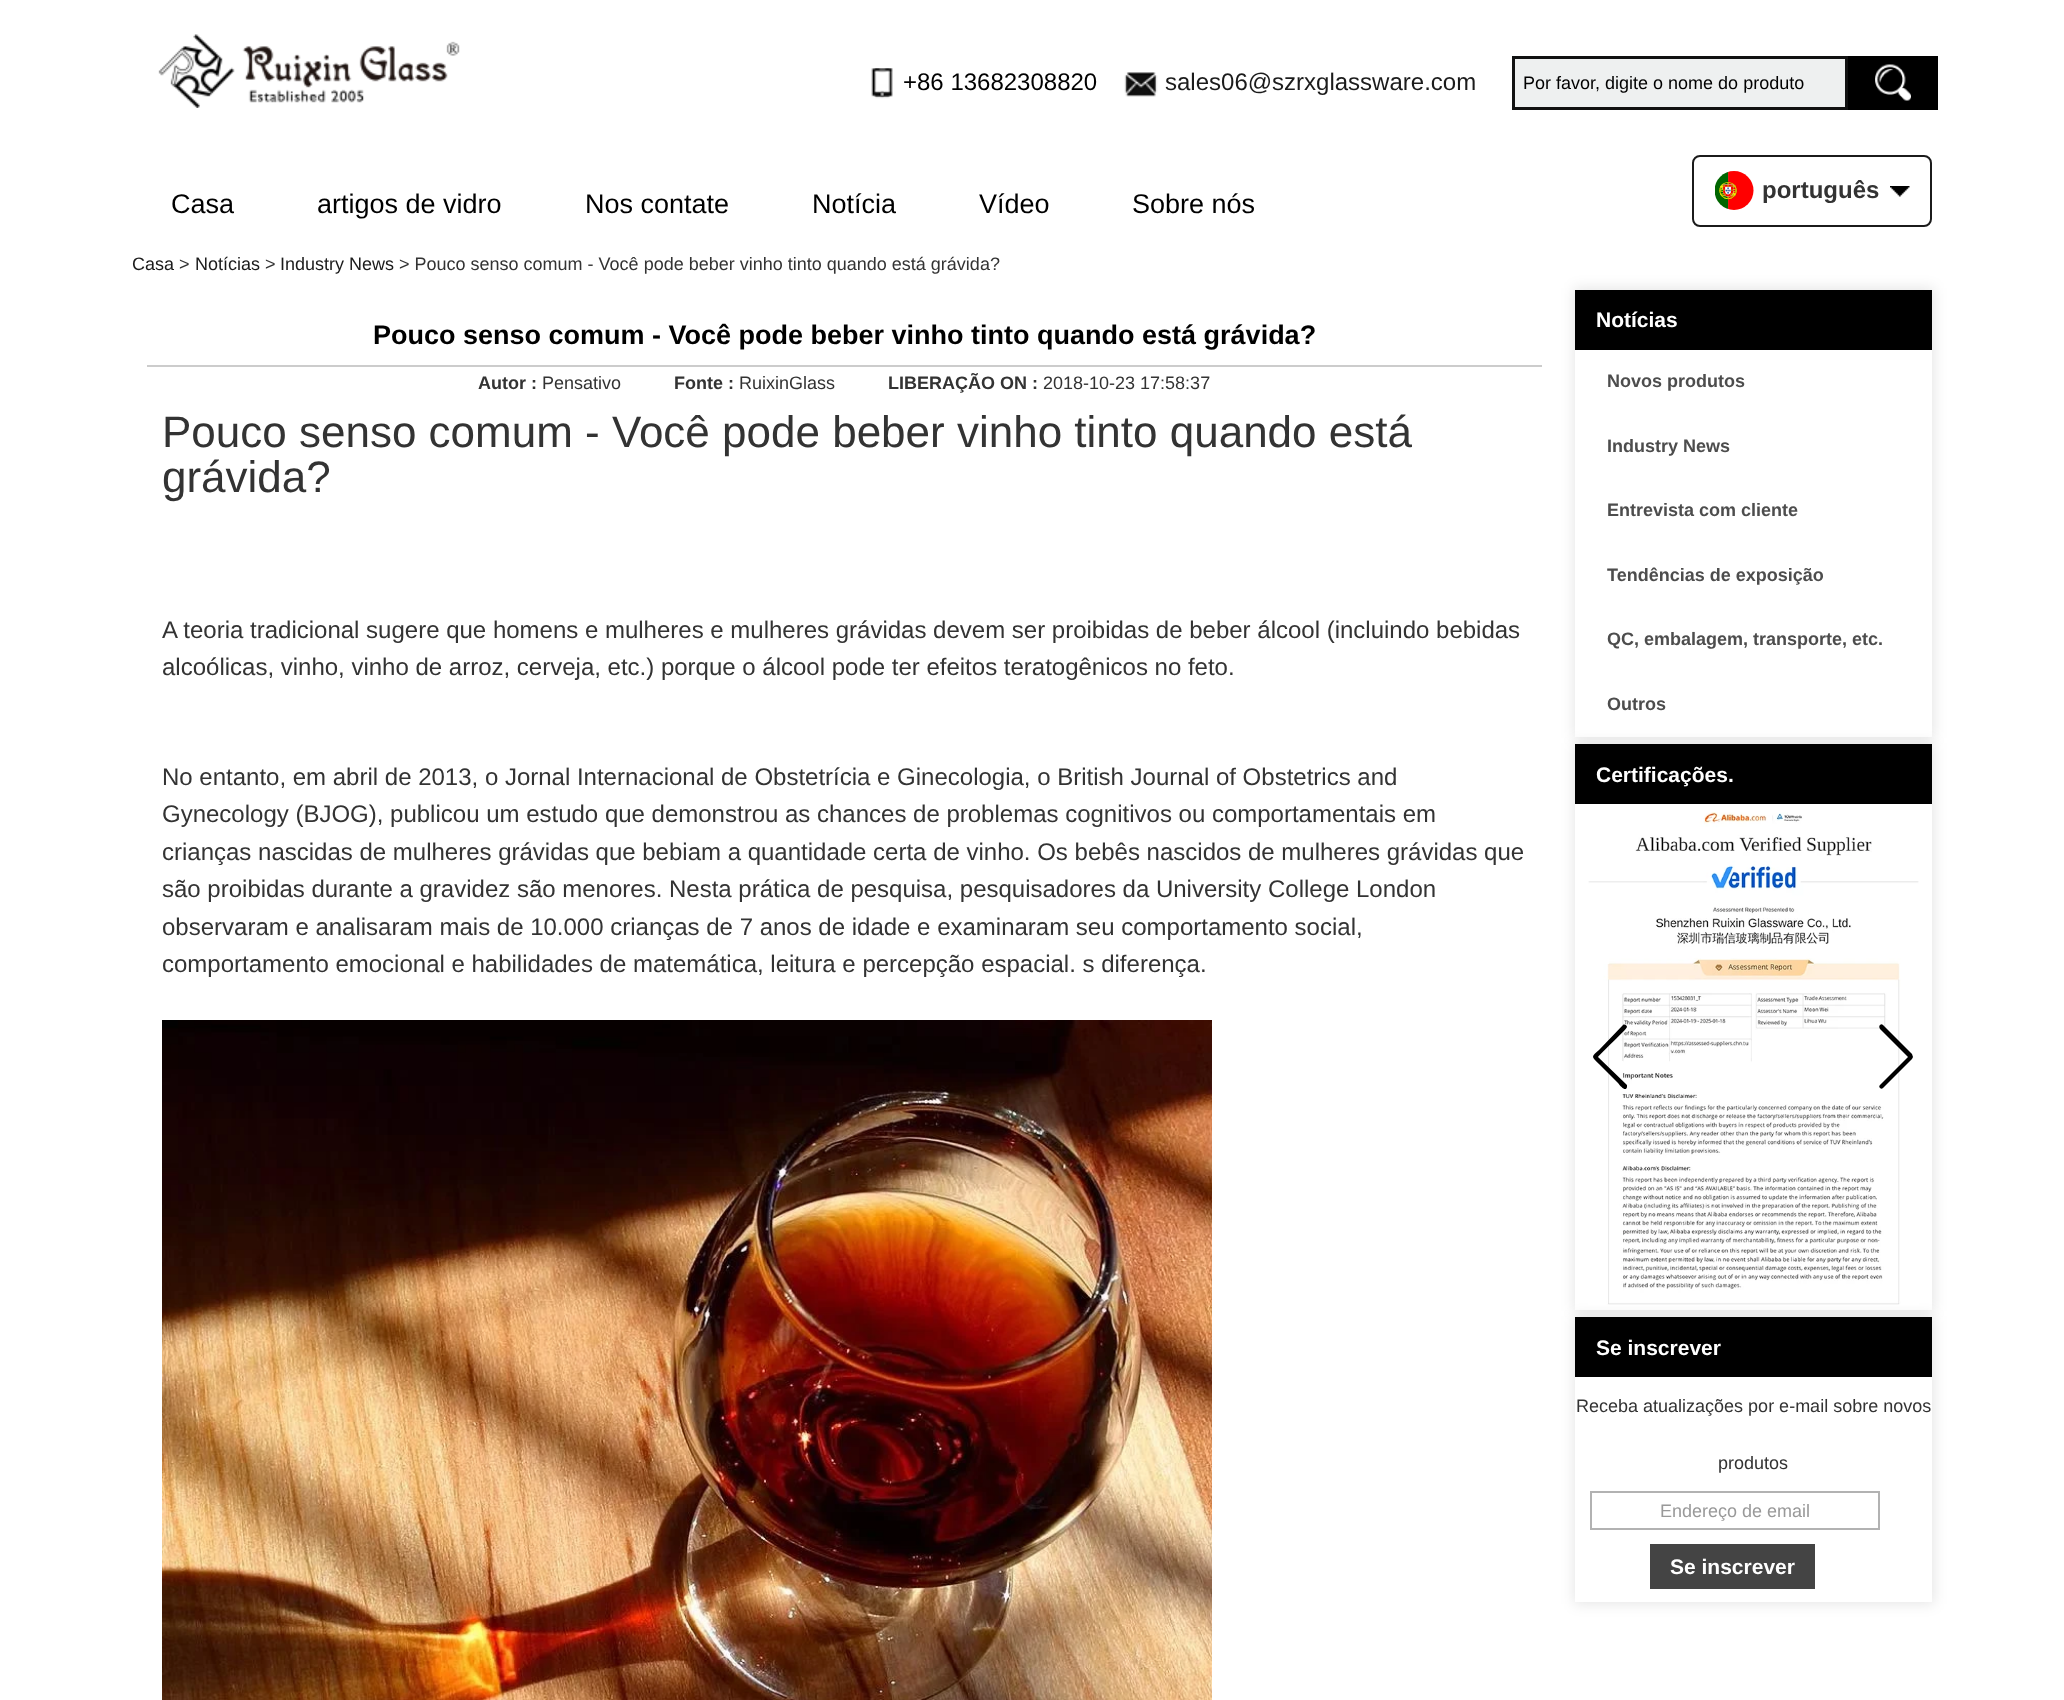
<!DOCTYPE html>
<meta charset="utf-8">
<style>body { margin: 0 } canvas { display: block }</style>
<canvas id="canvas" width="2064" height="1700"></canvas>
<script type="module">
  const canvas = document.getElementById("canvas");
  const g = canvas.getContext("2d");
  g.miterLimit = 4;
  g.fontKerning = "normal";
  function drawText(s, x, y, [font, color]) {
    g.font = font;
    g.fillStyle = color;
    g.fillText(s, x, y);
  }
  function fillBox(x, y, w, h, color) {
    g.fillStyle = color;
    g.fillRect(x, y, w, h);
  }
  async function drawPicture(src, x, y, w, h) {
    const img = new Image();
    img.src = src;
    await img.decode();
    g.drawImage(img, x, y, w, h);
  }

  const s1 = ["24px Liberation Sans", "#000000"];
  const s2 = ["24px Liberation Sans", "#1B1B1B"];
  const s3 = ["18px Liberation Sans", "#000000"];
  const s4 = ["27px Liberation Sans", "#000000"];
  const s5 = ["bold 24px Liberation Sans", "#333333"];
  const s6 = ["18px Liberation Sans", "#1B1B1B"];
  const s7 = ["18px Liberation Sans", "#333333"];
  const s8 = ["bold 27px Liberation Sans", "#000000"];
  const s9 = ["bold 18px Liberation Sans", "#333333"];
  const s10 = ["44px Liberation Sans", "#333333"];
  const s11 = ["24px Liberation Sans", "#333333"];
  const s12 = ["bold 21px Liberation Sans", "#FFFFFF"];
  const s13 = ["bold 18px Liberation Sans", "#4D4D4D"];
  const s14 = ["18px Liberation Sans", "#999999"];

  fillBox(0, 0, 2064, 1700, "#FFFFFF");
  await drawPicture("pic1.png", 158, 34, 302, 74);
  await drawPicture("pic2.png", 871, 68, 22, 31);
  drawText("+86 13682308820", 903, 90, s1);
  await drawPicture("pic3.png", 1124, 72, 34, 25);
  drawText("sales06@szrxglassware.com", 1165, 90, s2);
  g.fillStyle = "#EEF0F0";
  g.beginPath();
  g.rect(1513.5, 57.5, 333, 51);
  g.fill();
  g.strokeStyle = "#111111";
  g.lineWidth = 3;
  g.stroke();
  drawText("Por favor, digite o nome do produto", 1523, 89, s3);
  fillBox(1848, 56, 90, 54, "#000000");
  await drawPicture("pic4.png", 1875, 64, 36, 37);
  drawText("Casa", 171, 213, s4);
  drawText("artigos de vidro", 317, 213, s4);
  drawText("Nos contate", 585, 213, s4);
  drawText("Notícia", 812, 213, s4);
  drawText("Vídeo", 979, 213, s4);
  drawText("Sobre nós", 1132, 213, s4);
  g.beginPath();
  g.roundRect(1693, 156, 238, 70, 7);
  g.strokeStyle = "#1B1B1B";
  g.lineWidth = 2;
  g.stroke();
  await drawPicture("pic5.png", 1715, 171, 39, 39);
  drawText("português", 1762, 198, s5);
  await drawPicture("pic6.png", 1890, 186, 20, 11);
  drawText("Casa", 132, 270, s6);
  drawText(">", 179, 270, s7);
  drawText("Notícias", 195, 270, s6);
  drawText(">", 265, 270, s7);
  drawText("Industry News", 280, 270, s6);
  drawText("> Pouco senso comum - Você pode beber vinho tinto quando está grávida?", 399, 270, s7);
  fillBox(147, 365, 1395, 2, "#CCCCCC");
  drawText("Pouco senso comum - Você pode beber vinho tinto quando está grávida?", 373, 344, s8);
  drawText("Autor :", 478, 389, s9);
  drawText("Pensativo", 542, 389, s7);
  drawText("Fonte :", 674, 389, s9);
  drawText("RuixinGlass", 739, 389, s7);
  drawText("LIBERAÇÃO ON :", 888, 389, s9);
  drawText("2018-10-23 17:58:37", 1043, 389, s7);
  drawText("Pouco senso comum - Você pode beber vinho tinto quando está", 162, 447, s10);
  drawText("grávida?", 162, 492, s10);
  drawText("A teoria tradicional sugere que homens e mulheres e mulheres grávidas devem ser proibidas de beber álcool (incluindo bebidas", 162, 638, s11);
  drawText("alcoólicas, vinho, vinho de arroz, cerveja, etc.) porque o álcool pode ter efeitos teratogênicos no feto.", 162, 675, s11);
  drawText("No entanto, em abril de 2013, o Jornal Internacional de Obstetrícia e Ginecologia, o British Journal of Obstetrics and", 162, 785, s11);
  drawText("Gynecology (BJOG), publicou um estudo que demonstrou as chances de problemas cognitivos ou comportamentais em", 162, 822, s11);
  drawText("crianças nascidas de mulheres grávidas que bebiam a quantidade certa de vinho. Os bebês nascidos de mulheres grávidas que", 162, 860, s11);
  drawText("são proibidas durante a gravidez são menores. Nesta prática de pesquisa, pesquisadores da University College London", 162, 897, s11);
  drawText("observaram e analisaram mais de 10.000 crianças de 7 anos de idade e examinaram seu comportamento social,", 162, 935, s11);
  drawText("comportamento emocional e habilidades de matemática, leitura e percepção espacial. s diferença.", 162, 972, s11);
  await drawPicture("pic7.png", 162, 1020, 1050, 680);
  g.save();
  g.beginPath();
  g.moveTo(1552, 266);
  g.lineTo(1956, 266);
  g.lineTo(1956, 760);
  g.lineTo(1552, 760);
  g.closePath();
  g.moveTo(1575, 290);
  g.lineTo(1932, 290);
  g.lineTo(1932, 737);
  g.lineTo(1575, 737);
  g.closePath();
  g.clip("evenodd");
  g.fillStyle = "rgba(0, 0, 0, 0.1)";
  g.filter = "blur(7px)";
  g.beginPath();
  g.rect(1574, 288, 360, 450);
  g.fill();
  g.filter = "none";
  g.restore();
  fillBox(1575, 290, 357, 60, "#000000");
  drawText("Notícias", 1596, 327, s12);
  drawText("Novos produtos", 1607, 387, s13);
  drawText("Industry News", 1607, 452, s13);
  drawText("Entrevista com cliente", 1607, 516, s13);
  drawText("Tendências de exposição", 1607, 581, s13);
  drawText("QC, embalagem, transporte, etc.", 1607, 645, s13);
  drawText("Outros", 1607, 710, s13);
  g.save();
  g.beginPath();
  g.moveTo(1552, 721);
  g.lineTo(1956, 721);
  g.lineTo(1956, 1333);
  g.lineTo(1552, 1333);
  g.closePath();
  g.moveTo(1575, 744);
  g.lineTo(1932, 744);
  g.lineTo(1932, 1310);
  g.lineTo(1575, 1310);
  g.closePath();
  g.clip("evenodd");
  g.fillStyle = "rgba(0, 0, 0, 0.1)";
  g.filter = "blur(7px)";
  g.beginPath();
  g.rect(1574, 743, 360, 568);
  g.fill();
  g.filter = "none";
  g.restore();
  fillBox(1575, 744, 357, 60, "#000000");
  drawText("Certificações.", 1596, 782, s12);
  g.save();
  g.beginPath();
  g.moveTo(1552, 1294);
  g.lineTo(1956, 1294);
  g.lineTo(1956, 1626);
  g.lineTo(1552, 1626);
  g.closePath();
  g.moveTo(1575, 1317);
  g.lineTo(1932, 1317);
  g.lineTo(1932, 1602);
  g.lineTo(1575, 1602);
  g.closePath();
  g.clip("evenodd");
  g.fillStyle = "rgba(0, 0, 0, 0.1)";
  g.filter = "blur(7px)";
  g.beginPath();
  g.rect(1574, 1316, 360, 288);
  g.fill();
  g.filter = "none";
  g.restore();
  await drawPicture("pic8.png", 1588, 812, 331, 493);
  g.fillStyle = "#000000";
  g.beginPath();
  g.moveTo(1623, 1025);
  g.bezierCurveTo(1624, 1024, 1627, 1025, 1627, 1027);
  g.bezierCurveTo(1627, 1029, 1601, 1053, 1598, 1057);
  g.lineTo(1627, 1085);
  g.lineTo(1627, 1087);
  g.bezierCurveTo(1626, 1092, 1621, 1087, 1618, 1083);
  g.lineTo(1599, 1064);
  g.bezierCurveTo(1591, 1056, 1591, 1057, 1599, 1050);
  g.closePath();
  g.fill();
  g.beginPath();
  g.moveTo(1880, 1088);
  g.bezierCurveTo(1879, 1087, 1879, 1086, 1880, 1085);
  g.lineTo(1908, 1057);
  g.lineTo(1880, 1029);
  g.bezierCurveTo(1879, 1027, 1879, 1026, 1880, 1025);
  g.bezierCurveTo(1881, 1024, 1882, 1024, 1883, 1025);
  g.lineTo(1912, 1054);
  g.lineTo(1913, 1057);
  g.lineTo(1912, 1059);
  g.lineTo(1883, 1088);
  g.bezierCurveTo(1882, 1089, 1881, 1089, 1880, 1088);
  g.closePath();
  g.fill();
  fillBox(1575, 1317, 357, 60, "#000000");
  drawText("Se inscrever", 1596, 1355, s12);
  drawText("Receba atualizações por e-mail sobre novos", 1576, 1412, s7);
  drawText("produtos", 1718, 1469, s7);
  g.strokeStyle = "#B2B2B2";
  g.strokeRect(1591, 1492, 288, 37);
  drawText("Endereço de email", 1660, 1517, s14);
  fillBox(1650, 1544, 165, 45, "#444444");
  drawText("Se inscrever", 1670, 1574, s12);
</script>
